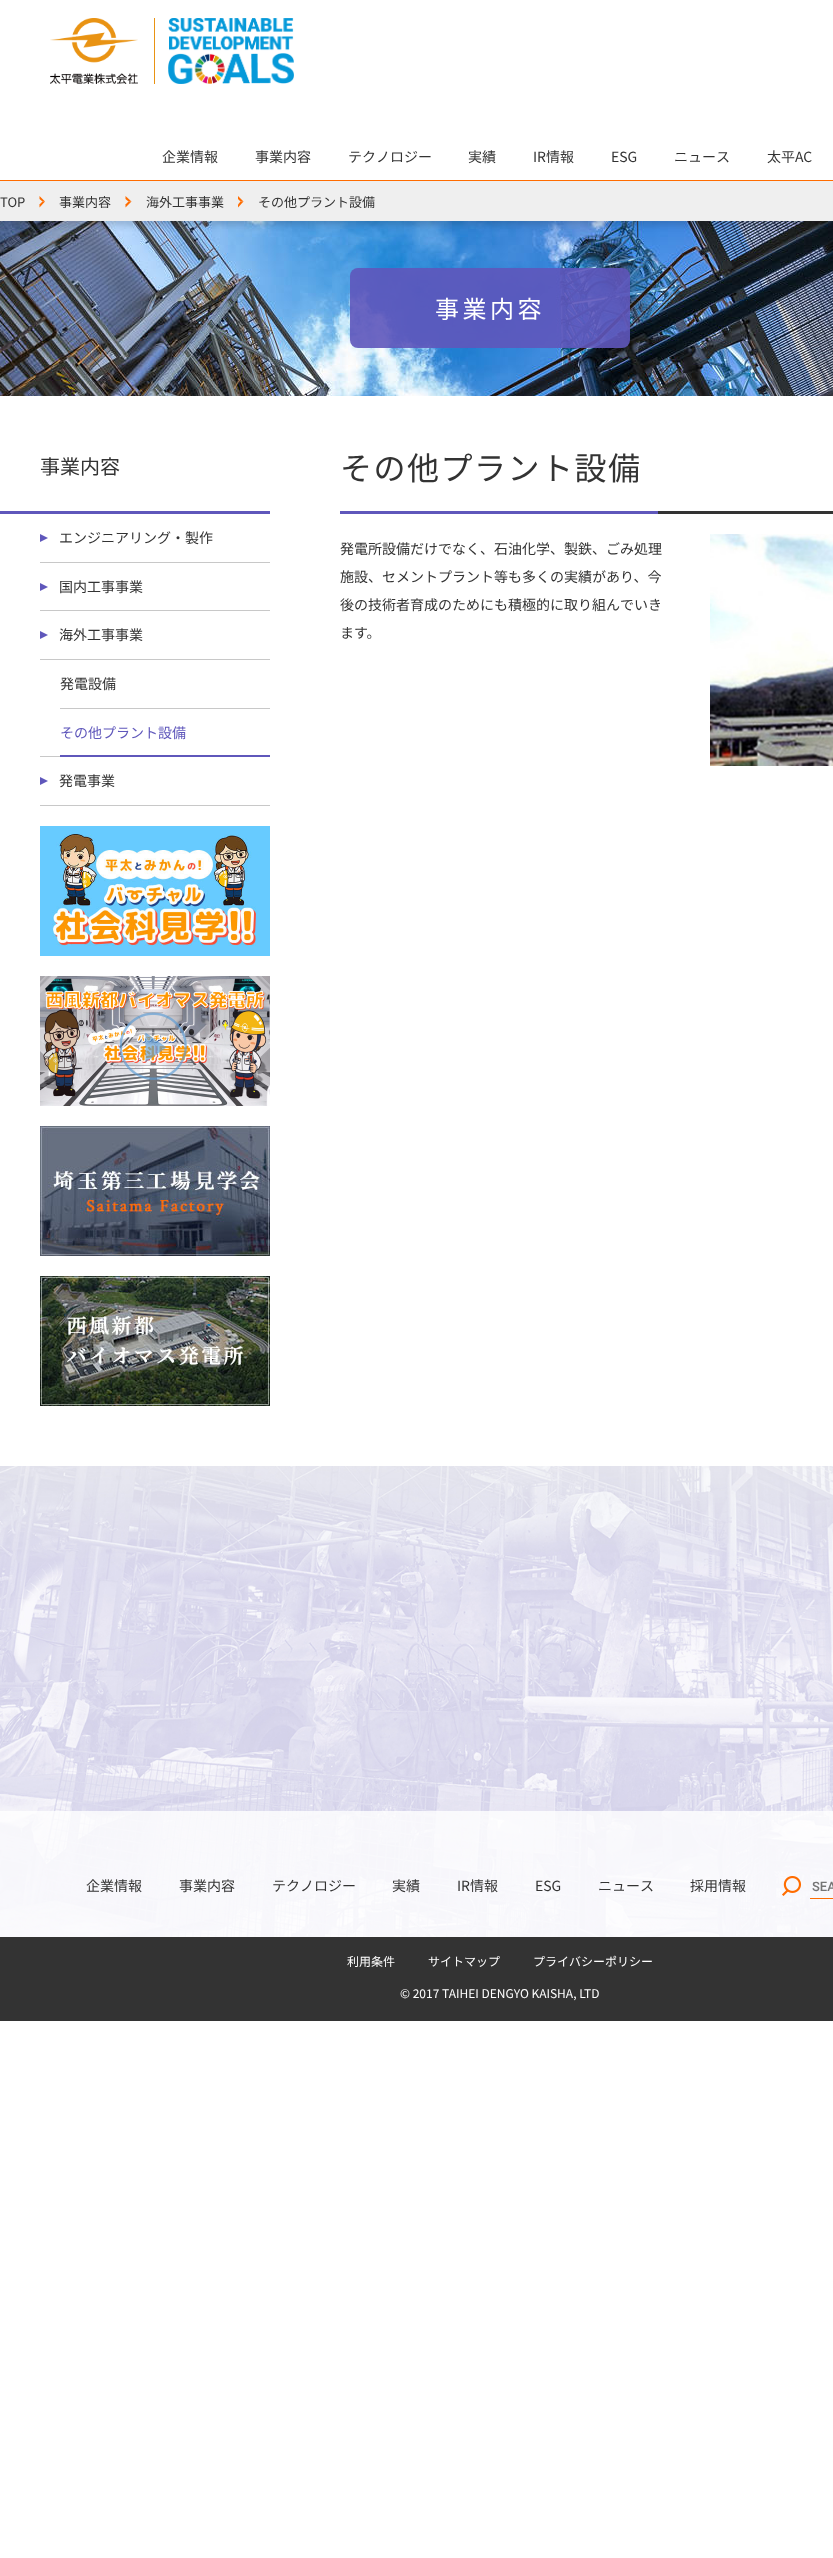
<!DOCTYPE html>
<meta charset="utf-8">
<style>body { margin: 0 } canvas { display: block }</style>
<canvas id="canvas" width="833" height="2558"></canvas>
<script type="module">
  const canvas = document.getElementById("canvas");
  const g = canvas.getContext("2d");
  g.miterLimit = 4;
  g.fontKerning = "normal";
  function drawText(s, x, y, [font, color]) {
    g.font = font;
    g.fillStyle = color;
    g.fillText(s, x, y);
  }
  function fillBox(x, y, w, h, color) {
    g.fillStyle = color;
    g.fillRect(x, y, w, h);
  }
  function fillRounded(x, y, w, h, r, color) {
    g.fillStyle = color;
    g.beginPath();
    g.roundRect(x, y, w, h, r);
    g.fill();
  }
  async function drawPicture(src, x, y, w, h) {
    const img = new Image();
    img.src = src;
    await img.decode();
    g.drawImage(img, x, y, w, h);
  }

  const s1 = ["14px Noto Sans CJK JP", "#333333"];
  const s2 = ["13px Noto Sans CJK JP", "#333333"];
  const s3 = ["24px Noto Sans CJK JP", "#FFFFFF"];
  const s4 = ["20px Noto Sans CJK JP", "#333333"];
  const s5 = ["14px Noto Sans CJK JP", "#5F57BB"];
  const s6 = ["32px Noto Sans CJK JP", "#333333"];
  const s7 = ["500 13px Roboto", "#757575"];
  const s8 = ["12px Noto Sans CJK JP", "#FFFFFF"];

  fillBox(0, 0, 833, 2558, "#FFFFFF");
  await drawPicture("pic1.png", 0, 1466, 833, 471);
  await drawPicture("pic2.png", 50, 18, 88, 66);
  await drawPicture("pic3.png", 168, 18, 126, 66);
  fillBox(154, 18, 1, 66, "#E99313");
  drawText("企業情報", 162, 162, s1);
  drawText("事業内容", 255, 162, s1);
  drawText("テクノロジー", 348, 162, s1);
  drawText("実績", 468, 162, s1);
  drawText("IR情報", 533, 162, s1);
  drawText("ESG", 611, 162, s1);
  drawText("ニュース", 674, 162, s1);
  drawText("太平AC", 767, 162, s1);
  await drawPicture("pic4.png", 0, 221, 833, 175);
  g.fillStyle = "rgba(3, 4, 2, 0.1)";
  g.filter = "blur(5px)";
  g.beginPath();
  g.rect(4, 190, 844, 33);
  g.fill();
  g.filter = "none";
  fillBox(0, 181, 833, 40, "#EFEFEF");
  fillBox(0, 180, 833, 1, "#FF6C00");
  drawText("TOP", 0, 207, s2);
  g.fillStyle = "#FF6C00";
  g.beginPath();
  g.moveTo(39.5, 196);
  g.lineTo(45, 201.5);
  g.lineTo(42.5, 201.5);
  g.lineTo(39.5, 199);
  g.closePath();
  g.fill();
  g.beginPath();
  g.moveTo(45, 201.5);
  g.lineTo(39.5, 207.5);
  g.lineTo(39.5, 204.5);
  g.lineTo(42.5, 201.5);
  g.closePath();
  g.fill();
  drawText("事業内容", 59, 207, s2);
  g.fillStyle = "#FF6C00";
  g.beginPath();
  g.moveTo(125.5, 196);
  g.lineTo(131.5, 201.5);
  g.lineTo(128.5, 201.5);
  g.lineTo(125.5, 199);
  g.closePath();
  g.fill();
  g.beginPath();
  g.moveTo(131.5, 201.5);
  g.lineTo(125.5, 207.5);
  g.lineTo(125.5, 204.5);
  g.lineTo(128.5, 201.5);
  g.closePath();
  g.fill();
  drawText("海外工事事業", 146, 207, s2);
  g.fillStyle = "#FF6C00";
  g.beginPath();
  g.moveTo(238, 196);
  g.lineTo(243.5, 201.5);
  g.lineTo(240.5, 201.5);
  g.lineTo(238, 199);
  g.closePath();
  g.fill();
  g.beginPath();
  g.moveTo(243.5, 201.5);
  g.lineTo(238, 207.5);
  g.lineTo(238, 204.5);
  g.lineTo(240.5, 201.5);
  g.closePath();
  g.fill();
  drawText("その他プラント設備", 258, 207, s2);
  fillRounded(350, 268, 280, 80, 8, "rgba(95, 87, 187, 0.9)");
  g.letterSpacing = "3.5px";
  drawText("事業内容", 435, 318, s3);
  fillBox(40, 805, 230, 1, "#C8C8C8");
  fillBox(0, 511, 270, 3, "#5F57BB");
  g.letterSpacing = "0px";
  drawText("事業内容", 40, 474, s4);
  g.fillStyle = "#5F57BB";
  g.beginPath();
  g.moveTo(40, 542);
  g.lineTo(40, 534);
  g.lineTo(48, 538);
  g.closePath();
  g.fill();
  drawText("エンジニアリング・製作", 59, 543, s1);
  fillBox(40, 562, 230, 1, "#C8C8C8");
  g.fillStyle = "#5F57BB";
  g.beginPath();
  g.moveTo(40, 591);
  g.lineTo(40, 583);
  g.lineTo(48, 587);
  g.closePath();
  g.fill();
  drawText("国内工事事業", 59, 592, s1);
  fillBox(40, 610, 230, 1, "#C8C8C8");
  g.fillStyle = "#5F57BB";
  g.beginPath();
  g.moveTo(40, 639);
  g.lineTo(40, 631);
  g.lineTo(48, 635);
  g.closePath();
  g.fill();
  drawText("海外工事事業", 59, 640, s1);
  fillBox(40, 659, 230, 1, "#C8C8C8");
  drawText("発電設備", 60, 689, s1);
  fillBox(60, 708, 210, 1, "#C8C8C8");
  drawText("その他プラント設備", 60, 738, s5);
  fillBox(60, 755, 210, 2, "#5F57BB");
  fillBox(40, 756, 20, 1, "#C8C8C8");
  g.fillStyle = "#5F57BB";
  g.beginPath();
  g.moveTo(40, 785);
  g.lineTo(40, 777);
  g.lineTo(48, 781);
  g.closePath();
  g.fill();
  drawText("発電事業", 59, 786, s1);
  await drawPicture("pic5.png", 40, 826, 230, 130);
  await drawPicture("pic6.png", 40, 976, 230, 130);
  await drawPicture("pic7.png", 40, 1126, 230, 130);
  await drawPicture("pic8.png", 40, 1276, 230, 130);
  fillBox(658, 511, 175, 3, "#333333");
  g.letterSpacing = "1.5px";
  drawText("その他プラント設備", 340, 480, s6);
  fillBox(340, 511, 318, 3, "#5F57BB");
  g.letterSpacing = "0px";
  drawText("発電所設備だけでなく、石油化学、製鉄、ごみ処理", 340, 554, s1);
  drawText("施設、セメントプラント等も多くの実績があり、今", 340, 582, s1);
  drawText("後の技術者育成のためにも積極的に取り組んでいき", 340, 610, s1);
  drawText("ます。", 340, 638, s1);
  await drawPicture("pic9.png", 710, 534, 123, 232);
  fillBox(0, 1811, 833, 126, "rgba(255, 255, 255, 0.8)");
  drawText("企業情報", 86, 1891, s1);
  drawText("事業内容", 179, 1891, s1);
  drawText("テクノロジー", 272, 1891, s1);
  drawText("実績", 392, 1891, s1);
  drawText("IR情報", 457, 1891, s1);
  drawText("ESG", 535, 1891, s1);
  drawText("ニュース", 598, 1891, s1);
  drawText("採用情報", 690, 1891, s1);
  await drawPicture("pic10.png", 782, 1876, 19, 20);
  fillBox(810, 1898, 23, 1, "#FF6C00");
  drawText("SEA", 812, 1891, s7);
  fillBox(0, 1937, 833, 84, "#333333");
  drawText("利用条件", 347, 1966, s8);
  drawText("サイトマップ", 428, 1966, s8);
  drawText("プライバシーポリシー", 533, 1966, s8);
  drawText("© 2017 TAIHEI DENGYO KAISHA, LTD", 400, 1998, s8);
</script>
